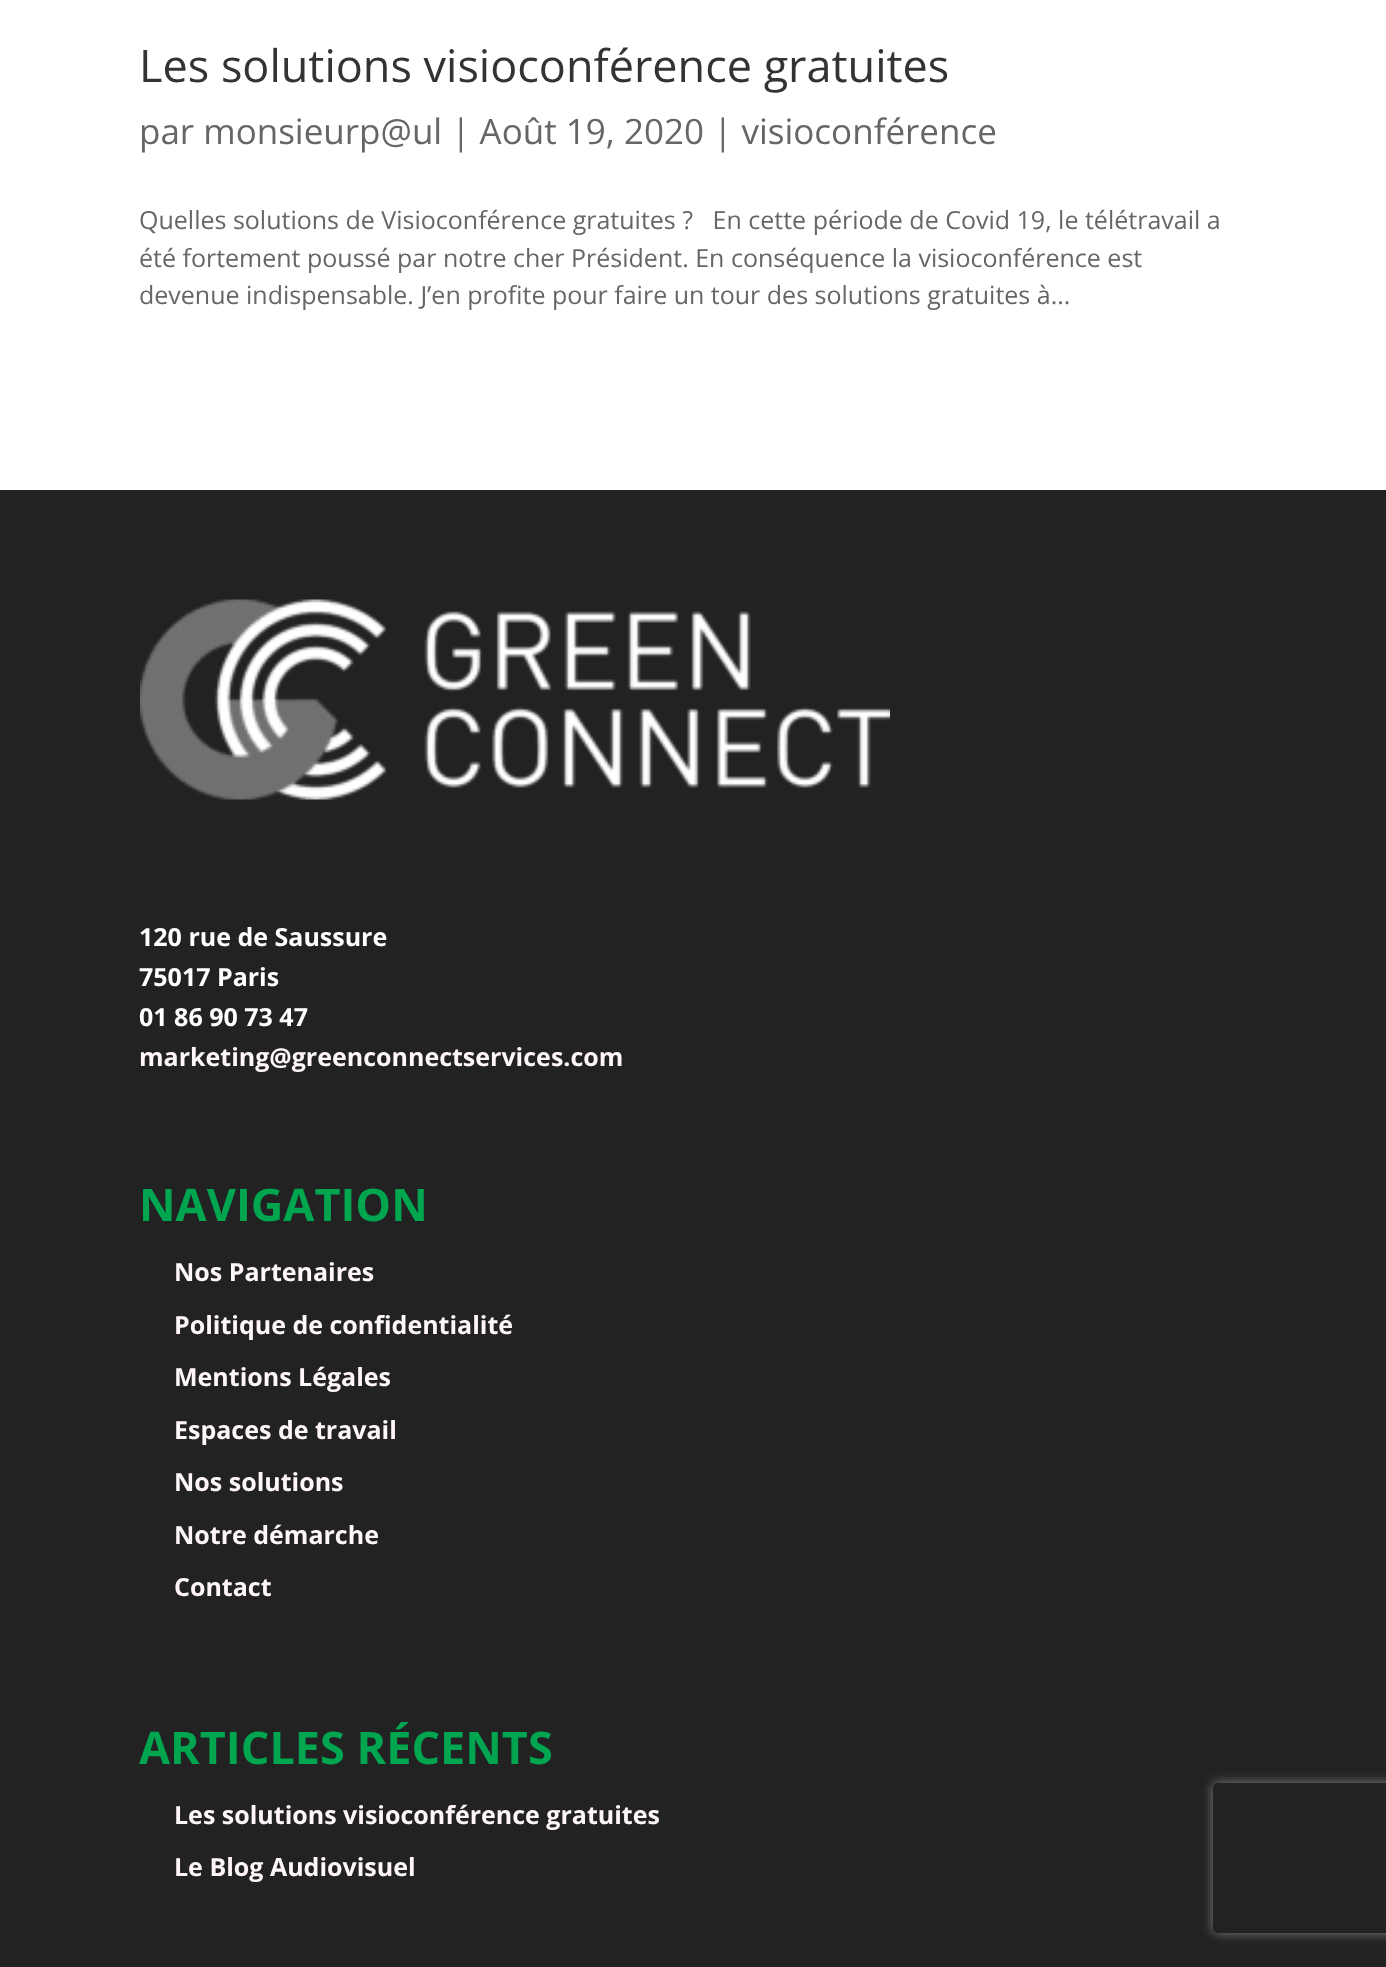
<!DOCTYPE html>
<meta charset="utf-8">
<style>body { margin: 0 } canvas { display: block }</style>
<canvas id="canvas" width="1386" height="1967"></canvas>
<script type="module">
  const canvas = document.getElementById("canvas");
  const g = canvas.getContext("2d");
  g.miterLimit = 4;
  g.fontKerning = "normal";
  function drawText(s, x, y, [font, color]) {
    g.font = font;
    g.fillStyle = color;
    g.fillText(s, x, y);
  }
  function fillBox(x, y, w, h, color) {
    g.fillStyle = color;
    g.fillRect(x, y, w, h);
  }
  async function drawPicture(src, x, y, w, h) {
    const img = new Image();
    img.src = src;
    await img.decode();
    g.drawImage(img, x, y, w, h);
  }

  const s1 = ["45px Open Sans", "#333333"];
  const s2 = ["35px Open Sans", "#666666"];
  const s3 = ["25px Open Sans", "#666666"];
  const s4 = ["bold 25px Open Sans", "#FFFFFF"];
  const s5 = ["bold 25px Open Sans", "#FFF7F7"];
  const s6 = ["bold 45px Open Sans", "#00A54F"];

  fillBox(0, 0, 1386, 1967, "#FFFFFF");
  drawText("Les solutions visioconférence gratuites", 139, 82, s1);
  drawText("par monsieurp@ul | Août 19, 2020 | visioconférence", 139, 144, s2);
  drawText("Quelles solutions de Visioconférence gratuites ?   En cette période de Covid 19, le télétravail a", 139, 229, s3);
  drawText("été fortement poussé par notre cher Président. En conséquence la visioconférence est", 139, 267, s3);
  drawText("devenue indispensable. J’en profite pour faire un tour des solutions gratuites à...", 139, 304, s3);
  fillBox(0, 490, 1386, 1477, "#222222");
  await drawPicture("pic1.png", 140, 599, 750, 201);
  drawText("120 rue de Saussure", 139, 946, s4);
  drawText("75017 Paris", 139, 986, s4);
  drawText("01 86 90 73 47", 139, 1026, s4);
  drawText("marketing@greenconnectservices.com", 139, 1066, s5);
  drawText("NAVIGATION", 139, 1221, s6);
  drawText("Nos Partenaires", 174, 1281, s5);
  drawText("Politique de confidentialité", 174, 1334, s5);
  drawText("Mentions Légales", 174, 1386, s5);
  drawText("Espaces de travail", 174, 1439, s5);
  drawText("Nos solutions", 174, 1491, s5);
  drawText("Notre démarche", 174, 1544, s5);
  drawText("Contact", 174, 1596, s5);
  drawText("ARTICLES RÉCENTS", 139, 1764, s6);
  drawText("Les solutions visioconférence gratuites", 174, 1824, s5);
  drawText("Le Blog Audiovisuel", 174, 1876, s5);
  g.save();
  g.beginPath();
  g.moveTo(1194, 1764);
  g.lineTo(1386, 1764);
  g.lineTo(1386, 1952);
  g.lineTo(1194, 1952);
  g.closePath();
  g.moveTo(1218, 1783);
  g.lineTo(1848, 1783);
  g.bezierCurveTo(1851, 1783, 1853, 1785, 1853, 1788);
  g.lineTo(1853, 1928);
  g.bezierCurveTo(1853, 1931, 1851, 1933, 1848, 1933);
  g.lineTo(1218, 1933);
  g.bezierCurveTo(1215, 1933, 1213, 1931, 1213, 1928);
  g.lineTo(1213, 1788);
  g.bezierCurveTo(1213, 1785, 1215, 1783, 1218, 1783);
  g.closePath();
  g.clip("evenodd");
  g.fillStyle = "#808080";
  g.filter = "blur(6px)";
  g.beginPath();
  g.roundRect(1213, 1783, 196, 150, 5);
  g.fill();
  g.filter = "none";
  g.restore();
</script>
